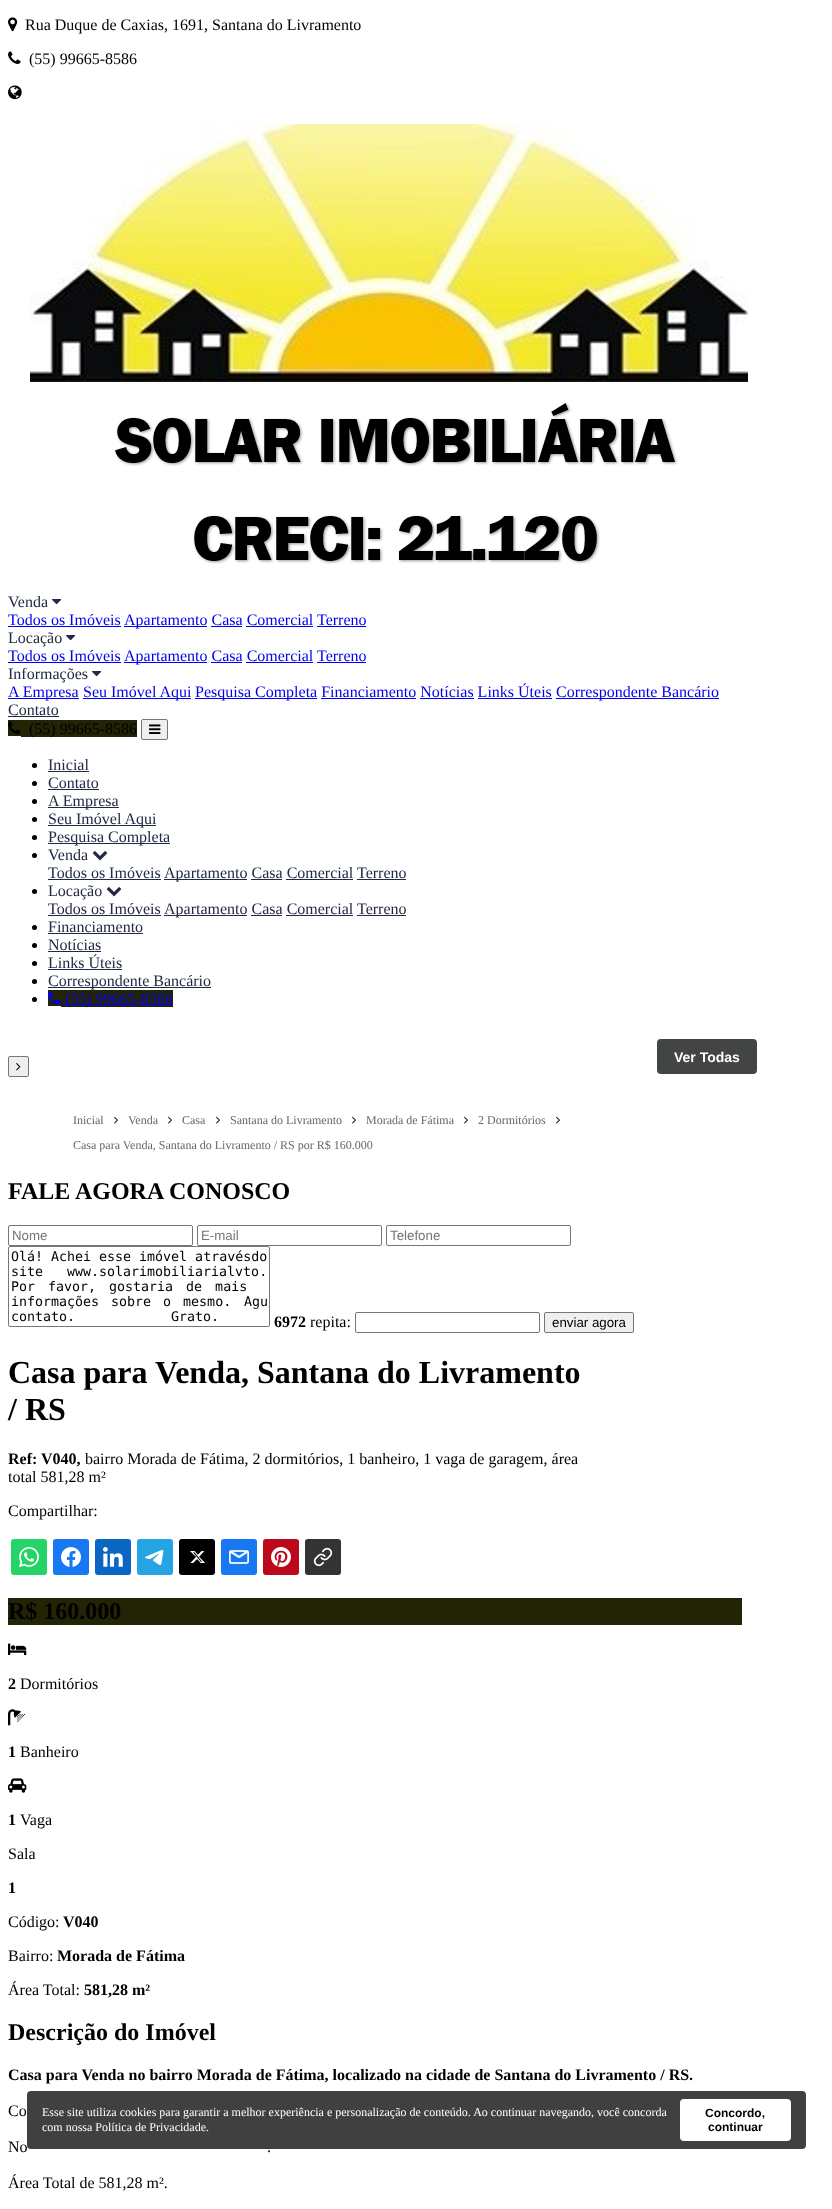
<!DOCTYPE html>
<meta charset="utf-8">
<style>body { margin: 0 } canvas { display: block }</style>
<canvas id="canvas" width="832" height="2209"></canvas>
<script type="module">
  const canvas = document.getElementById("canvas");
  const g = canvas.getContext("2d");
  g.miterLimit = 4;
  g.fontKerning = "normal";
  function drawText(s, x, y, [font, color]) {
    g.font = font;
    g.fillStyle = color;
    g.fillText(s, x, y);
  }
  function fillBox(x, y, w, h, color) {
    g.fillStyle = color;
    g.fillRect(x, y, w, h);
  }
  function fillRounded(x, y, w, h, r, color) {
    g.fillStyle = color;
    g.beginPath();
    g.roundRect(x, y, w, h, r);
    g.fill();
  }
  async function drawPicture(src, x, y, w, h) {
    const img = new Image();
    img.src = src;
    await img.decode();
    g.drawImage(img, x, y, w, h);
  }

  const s1 = ["16px Liberation Serif", "#000000"];
  const s2 = ["16px Liberation Serif", "#212A42"];
  const s3 = ["16px Liberation Serif", "#0000EE"];
  const s4 = ["bold 14px Liberation Sans", "#FFFFFF"];
  const s5 = ["12px Liberation Serif", "#666666"];
  const s6 = ["bold 24px Liberation Serif", "#000000"];
  const s7 = ["13.3px Liberation Sans", "#757575"];
  const s8 = ["13.3px DejaVu Sans Mono", "#000000"];
  const s9 = ["bold 16px Liberation Serif", "#000000"];
  const s10 = ["13.3px Liberation Sans", "#000000"];
  const s11 = ["bold 32px Liberation Serif", "#000000"];
  const s12 = ["12px Liberation Serif", "#FFFFFF"];
  const s13 = ["bold 12px Liberation Sans", "#000000"];

  fillBox(0, 0, 832, 2209, "#FFFFFF");
  await drawPicture("pic1.png", 8, 17, 10, 15);
  drawText("Rua Duque de Caxias, 1691, Santana do Livramento", 25, 30, s1);
  await drawPicture("pic2.png", 8, 51, 13, 13);
  drawText("(55) 99665-8586", 29, 64, s1);
  await drawPicture("pic3.png", 8, 85, 14, 15);
  await drawPicture("pic4.png", 30, 124, 718, 440);
  drawText("Venda", 8, 607, s2);
  await drawPicture("pic5.png", 52, 599, 10, 6);
  drawText("Todos os Imóveis", 8, 625, s3);
  fillBox(8, 626, 113, 1, "#0000EE");
  fillBox(124, 626, 83, 1, "#0000EE");
  drawText("Apartamento Casa Comercial Terreno", 124, 625, s3);
  fillBox(211, 626, 31, 1, "#0000EE");
  fillBox(246, 626, 67, 1, "#0000EE");
  fillBox(317, 626, 49, 1, "#0000EE");
  drawText("Locação", 8, 643, s2);
  await drawPicture("pic5.png", 66, 635, 10, 6);
  drawText("Todos os Imóveis", 8, 661, s3);
  fillBox(8, 662, 113, 1, "#0000EE");
  fillBox(124, 662, 83, 1, "#0000EE");
  drawText("Apartamento Casa Comercial Terreno", 124, 661, s3);
  fillBox(211, 662, 31, 1, "#0000EE");
  fillBox(246, 662, 67, 1, "#0000EE");
  fillBox(317, 662, 49, 1, "#0000EE");
  drawText("Informações", 8, 679, s2);
  await drawPicture("pic5.png", 92, 671, 10, 6);
  fillBox(8, 698, 71, 1, "#0000EE");
  drawText("A Empresa", 8, 697, s3);
  fillBox(83, 698, 108, 1, "#0000EE");
  drawText("Seu Imóvel Aqui", 83, 697, s3);
  fillBox(195, 698, 122, 1, "#0000EE");
  drawText("Pesquisa Completa Financiamento Notícias Links Úteis", 195, 697, s3);
  fillBox(556, 698, 163, 1, "#0000EE");
  drawText("Correspondente Bancário", 556, 697, s3);
  fillBox(321, 698, 95, 1, "#0000EE");
  fillBox(420, 698, 54, 1, "#0000EE");
  fillBox(478, 698, 74, 1, "#0000EE");
  drawText("Contato", 8, 715, s2);
  fillBox(8, 716, 51, 1, "#212A42");
  fillBox(8, 720, 13, 16, "#232406");
  fillBox(21, 720, 116, 17, "#232406");
  await drawPicture("pic6.png", 8, 721, 13, 13);
  drawText("(55) 99665-8586", 29, 734, s1);
  g.fillStyle = "#EFEFEF";
  g.beginPath();
  g.roundRect(141.5, 719.5, 26, 20, 1.5);
  g.fill();
  g.strokeStyle = "#767676";
  g.stroke();
  await drawPicture("pic7.png", 149, 724, 12, 10);
  g.fillStyle = "#000000";
  g.beginPath();
  g.arc(34.5, 765.5, 2.5, 0, Math.PI * 2);
  g.fill();
  drawText("Inicial", 48, 770, s2);
  fillBox(48, 771, 41, 1, "#212A42");
  g.fillStyle = "#000000";
  g.beginPath();
  g.arc(34.5, 783.5, 2.5, 0, Math.PI * 2);
  g.fill();
  drawText("Contato", 48, 788, s2);
  fillBox(48, 789, 51, 1, "#212A42");
  g.fillStyle = "#000000";
  g.beginPath();
  g.arc(34.5, 801.5, 2.5, 0, Math.PI * 2);
  g.fill();
  fillBox(48, 807, 71, 1, "#212A42");
  drawText("A Empresa", 48, 806, s2);
  g.fillStyle = "#000000";
  g.beginPath();
  g.arc(34.5, 819.5, 2.5, 0, Math.PI * 2);
  g.fill();
  fillBox(48, 825, 108, 1, "#212A42");
  drawText("Seu Imóvel Aqui", 48, 824, s2);
  g.fillStyle = "#000000";
  g.beginPath();
  g.arc(34.5, 837.5, 2.5, 0, Math.PI * 2);
  g.fill();
  fillBox(48, 843, 122, 1, "#212A42");
  drawText("Pesquisa Completa", 48, 842, s2);
  g.fillStyle = "#000000";
  g.beginPath();
  g.arc(34.5, 855.5, 2.5, 0, Math.PI * 2);
  g.fill();
  drawText("Venda", 48, 860, s2);
  await drawPicture("pic8.png", 92, 851, 16, 10);
  drawText("Todos os Imóveis", 48, 878, s2);
  fillBox(48, 879, 113, 1, "#212A42");
  fillBox(164, 879, 83, 1, "#212A42");
  drawText("Apartamento Casa Comercial Terreno", 164, 878, s2);
  fillBox(251, 879, 31, 1, "#212A42");
  fillBox(286, 879, 67, 1, "#212A42");
  fillBox(357, 879, 49, 1, "#212A42");
  g.fillStyle = "#000000";
  g.beginPath();
  g.arc(34.5, 891.5, 2.5, 0, Math.PI * 2);
  g.fill();
  drawText("Locação", 48, 896, s2);
  await drawPicture("pic8.png", 106, 887, 16, 10);
  drawText("Todos os Imóveis", 48, 914, s2);
  fillBox(48, 915, 113, 1, "#212A42");
  fillBox(164, 915, 83, 1, "#212A42");
  drawText("Apartamento Casa Comercial Terreno", 164, 914, s2);
  fillBox(251, 915, 31, 1, "#212A42");
  fillBox(286, 915, 67, 1, "#212A42");
  fillBox(357, 915, 49, 1, "#212A42");
  g.fillStyle = "#000000";
  g.beginPath();
  g.arc(34.5, 927.5, 2.5, 0, Math.PI * 2);
  g.fill();
  drawText("Financiamento", 48, 932, s2);
  fillBox(48, 933, 95, 1, "#212A42");
  g.fillStyle = "#000000";
  g.beginPath();
  g.arc(34.5, 945.5, 2.5, 0, Math.PI * 2);
  g.fill();
  drawText("Notícias", 48, 950, s2);
  fillBox(48, 951, 53, 1, "#212A42");
  g.fillStyle = "#000000";
  g.beginPath();
  g.arc(34.5, 963.5, 2.5, 0, Math.PI * 2);
  g.fill();
  drawText("Links Úteis", 48, 968, s2);
  fillBox(48, 969, 74, 1, "#212A42");
  g.fillStyle = "#000000";
  g.beginPath();
  g.arc(34.5, 981.5, 2.5, 0, Math.PI * 2);
  g.fill();
  fillBox(48, 987, 163, 1, "#212A42");
  drawText("Correspondente Bancário", 48, 986, s2);
  g.fillStyle = "#000000";
  g.beginPath();
  g.arc(34.5, 999.5, 2.5, 0, Math.PI * 2);
  g.fill();
  fillBox(48, 990, 13, 16, "#232406");
  fillBox(61, 990, 112, 17, "#232406");
  await drawPicture("pic9.png", 48, 991, 13, 13);
  fillBox(61, 1005, 112, 1, "#0000EE");
  drawText("(55) 99665-8586", 65, 1004, s3);
  g.fillStyle = "#EFEFEF";
  g.beginPath();
  g.roundRect(8.5, 1056.5, 20, 20, 1.5);
  g.fill();
  g.stroke();
  await drawPicture("pic10.png", 16, 1063, 5, 8);
  fillRounded(657, 1039, 100, 35, 4, "#424543");
  drawText("Ver Todas", 674, 1062, s4);
  drawText("Inicial", 73, 1124, s5);
  await drawPicture("pic11.png", 114, 1116, 4, 8);
  drawText("Venda", 128, 1124, s5);
  await drawPicture("pic11.png", 168, 1116, 4, 8);
  drawText("Casa", 182, 1124, s5);
  await drawPicture("pic11.png", 216, 1116, 4, 8);
  drawText("Santana do Livramento", 230, 1124, s5);
  await drawPicture("pic11.png", 352, 1116, 4, 8);
  drawText("Morada de Fátima", 366, 1124, s5);
  await drawPicture("pic11.png", 464, 1116, 4, 8);
  drawText("2 Dormitórios", 478, 1124, s5);
  await drawPicture("pic11.png", 556, 1116, 4, 8);
  drawText("Casa para Venda, Santana do Livramento / RS por R$ 160.000", 73, 1149, s5);
  drawText("FALE AGORA CONOSCO", 8, 1199, s6);
  g.beginPath();
  g.roundRect(8.5, 1225.5, 184, 20, 1.5);
  g.stroke();
  drawText("Nome", 12, 1240, s7);
  g.beginPath();
  g.roundRect(197.5, 1225.5, 184, 20, 1.5);
  g.stroke();
  drawText("E-mail", 201, 1240, s7);
  g.beginPath();
  g.roundRect(386.5, 1225.5, 184, 20, 1.5);
  g.stroke();
  drawText("Telefone", 390, 1240, s7);
  g.beginPath();
  g.roundRect(8.5, 1246.5, 261, 80, 1.5);
  g.stroke();
  drawText("Olá! Achei esse imóvel atravésdo", 11, 1261, s8);
  drawText("site", 11, 1276, s8);
  drawText("www.solarimobiliarialvto.", 67, 1276, s8);
  g.wordSpacing = "5px";
  drawText("Por favor, gostaria de mais", 11, 1291, s8);
  g.wordSpacing = "4px";
  drawText("informações sobre o mesmo.", 11, 1306, s8);
  g.wordSpacing = "0px";
  drawText("Agu", 244, 1306, s8);
  g.wordSpacing = "88px";
  drawText("contato. Grato.", 11, 1321, s8);
  g.wordSpacing = "0px";
  drawText("6972", 274, 1327, s9);
  drawText("repita:", 310, 1327, s1);
  g.beginPath();
  g.roundRect(355.5, 1312.5, 184, 20, 1.5);
  g.stroke();
  g.fillStyle = "#EFEFEF";
  g.beginPath();
  g.roundRect(544.5, 1312.5, 89, 20, 1.5);
  g.fill();
  g.stroke();
  drawText("enviar agora", 552, 1327, s10);
  drawText("Casa para Venda, Santana do Livramento", 8, 1383, s11);
  drawText("/ RS", 8, 1420, s11);
  drawText("Ref: V040,", 8, 1464, s9);
  drawText("bairro Morada de Fátima, 2 dormitórios, 1 banheiro, 1 vaga de garagem, área", 85, 1464, s1);
  drawText("total 581,28 m²", 8, 1482, s1);
  drawText("Compartilhar:", 8, 1516, s1);
  fillRounded(11, 1539, 36, 36, 3, "#25D366");
  await drawPicture("pic12.png", 19, 1547, 20, 20);
  fillRounded(53, 1539, 36, 36, 3, "#1877F2");
  await drawPicture("pic13.png", 61, 1547, 20, 20);
  fillRounded(95, 1539, 36, 36, 3, "#0A66C2");
  await drawPicture("pic14.png", 103, 1547, 20, 20);
  fillRounded(137, 1539, 36, 36, 3, "#26A5E4");
  await drawPicture("pic15.png", 145, 1550, 19, 16);
  fillRounded(179, 1539, 36, 36, 3, "#000000");
  await drawPicture("pic16.png", 190, 1551, 15, 12);
  fillRounded(221, 1539, 36, 36, 3, "#1877F2");
  await drawPicture("pic17.png", 229, 1550, 20, 14);
  fillRounded(263, 1539, 36, 36, 3, "#BD081C");
  await drawPicture("pic18.png", 271, 1547, 20, 20);
  fillRounded(305, 1539, 36, 36, 3, "#333333");
  await drawPicture("pic19.png", 313, 1547, 20, 20);
  fillBox(8, 1598, 734, 27, "#232406");
  drawText("R$ 160.000", 8, 1619, s6);
  await drawPicture("pic20.png", 8, 1643, 19, 12);
  drawText("2", 8, 1689, s9);
  drawText("Dormitórios", 20, 1689, s1);
  await drawPicture("pic21.png", 8, 1709, 18, 17);
  drawText("1", 8, 1757, s9);
  drawText("Banheiro", 20, 1757, s1);
  await drawPicture("pic22.png", 8, 1778, 19, 15);
  drawText("1", 8, 1825, s9);
  drawText("Vaga", 20, 1825, s1);
  drawText("Sala", 8, 1859, s1);
  drawText("1", 8, 1893, s9);
  drawText("Código:", 8, 1927, s1);
  drawText("V040", 63, 1927, s9);
  drawText("Bairro:", 8, 1961, s1);
  drawText("Morada de Fátima", 57, 1961, s9);
  drawText("Área Total:", 8, 1995, s1);
  drawText("581,28 m²", 84, 1995, s9);
  drawText("Descrição do Imóvel", 8, 2040, s6);
  drawText("Casa para Venda no bairro Morada de Fátima, localizado na cidade de Santana do Livramento / RS.", 8, 2080, s9);
  drawText("Co", 8, 2116, s1);
  drawText("No", 8, 2152, s1);
  drawText(".", 267, 2152, s1);
  drawText("Área Total de 581,28 m².", 8, 2188, s1);
  fillRounded(27, 2091, 779, 58, 4, "rgba(0, 0, 0, 0.75)");
  drawText("Esse site utiliza cookies para garantir a melhor experiência e personalização de conteúdo. Ao continuar navegando, você concorda", 42, 2116, s12);
  drawText("com nossa Política de Privacidade.", 42, 2131, s12);
  fillRounded(680, 2099, 111, 42, 4, "#FFFFFF");
  drawText("Concordo,", 705, 2117, s13);
  drawText("continuar", 708, 2131, s13);
</script>
